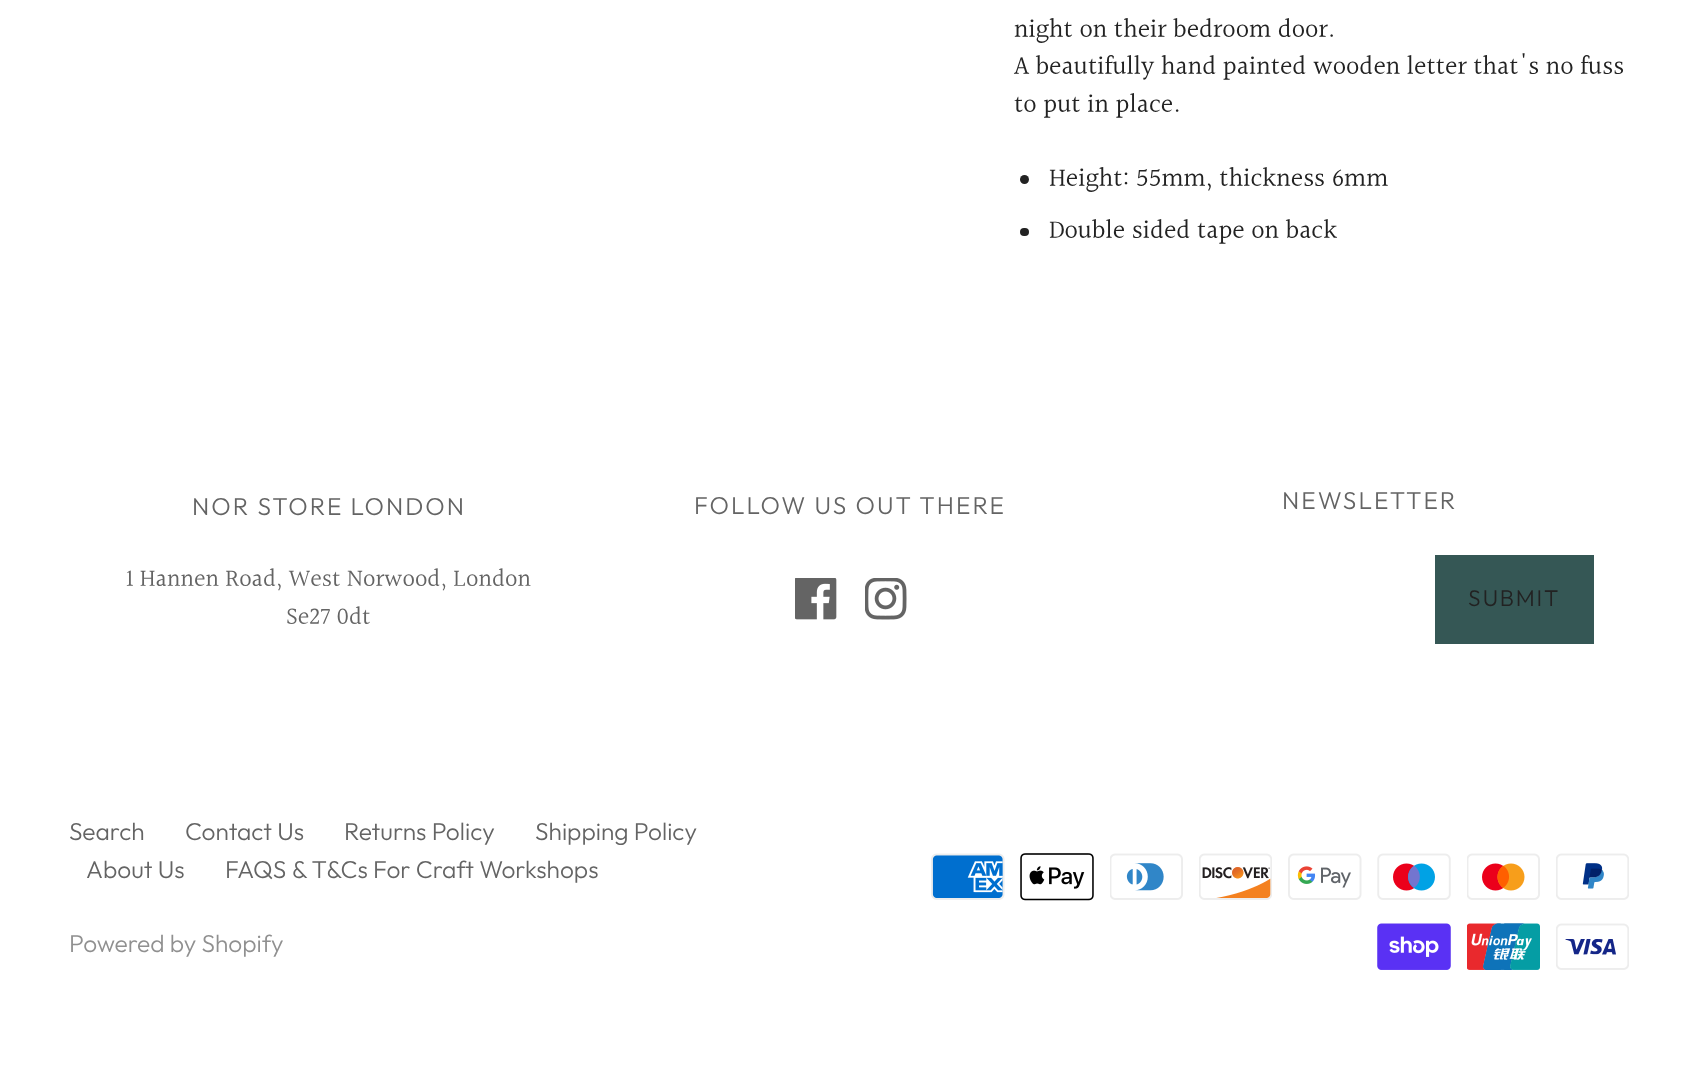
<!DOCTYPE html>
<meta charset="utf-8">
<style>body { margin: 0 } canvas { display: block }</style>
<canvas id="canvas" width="1697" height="1072"></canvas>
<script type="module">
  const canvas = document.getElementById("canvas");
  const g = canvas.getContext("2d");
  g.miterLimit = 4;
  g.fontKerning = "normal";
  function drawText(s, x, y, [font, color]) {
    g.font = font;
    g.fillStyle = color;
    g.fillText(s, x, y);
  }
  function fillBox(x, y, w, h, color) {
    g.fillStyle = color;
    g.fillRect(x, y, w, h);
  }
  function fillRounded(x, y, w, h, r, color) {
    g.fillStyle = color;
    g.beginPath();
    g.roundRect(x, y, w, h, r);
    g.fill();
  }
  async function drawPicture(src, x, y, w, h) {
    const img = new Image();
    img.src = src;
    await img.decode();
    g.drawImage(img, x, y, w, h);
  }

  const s1 = ["26.25px Halant", "#222222"];
  const s2 = ["300 24.5px Outfit", "#646464"];
  const s3 = ["24.5px Halant", "#646464"];
  const s4 = ["300 22.75px Outfit", "#222222"];
  const s5 = ["300 24.5px Outfit", "#909090"];

  fillBox(0, 0, 1697, 1072, "#FFFFFF");
  drawText("night on their bedroom door.", 1014, 38, s1);
  drawText("A beautifully hand painted wooden letter that's no fuss", 1014, 75, s1);
  drawText("to put in place.", 1014, 113, s1);
  g.beginPath();
  g.arc(1024.5, 179.5, 4.5, 0, Math.PI * 2);
  g.fill();
  drawText("Height: 55mm, thickness 6mm", 1049, 187, s1);
  fillRounded(1020, 228, 9, 8, 4, "#222222");
  drawText("Double sided tape on back", 1049, 239, s1);
  g.letterSpacing = "2px";
  drawText("NOR STORE LONDON", 192, 515, s2);
  g.letterSpacing = "0px";
  drawText("1 Hannen Road, West Norwood, London", 126, 587, s3);
  drawText("Se27 0dt", 286, 625, s3);
  g.letterSpacing = "2px";
  drawText("FOLLOW US OUT THERE", 694, 514, s2);
  await drawPicture("pic1.png", 795, 578, 42, 42);
  await drawPicture("pic2.png", 865, 578, 42, 42);
  drawText("NEWSLETTER", 1282, 509, s2);
  fillBox(1435, 555, 159, 89, "#355755");
  g.letterSpacing = "1.75px";
  drawText("SUBMIT", 1468, 606, s4);
  g.letterSpacing = "0px";
  drawText("Search", 69, 840, s2);
  drawText("Contact Us", 185, 840, s2);
  drawText("Returns Policy", 344, 840, s2);
  drawText("Shipping Policy", 535, 840, s2);
  drawText("About Us", 86, 878, s2);
  drawText("FAQS & T&Cs For Craft Workshops", 225, 878, s2);
  drawText("Powered by Shopify", 69, 952, s5);
  await drawPicture("pic3.png", 931, 853, 74, 47);
  await drawPicture("pic4.png", 1020, 853, 74, 48);
  await drawPicture("pic5.png", 1110, 853, 73, 47);
  await drawPicture("pic6.png", 1199, 853, 73, 47);
  await drawPicture("pic7.png", 1288, 853, 74, 47);
  await drawPicture("pic8.png", 1377, 853, 74, 47);
  await drawPicture("pic9.png", 1467, 853, 73, 47);
  await drawPicture("pic10.png", 1556, 853, 73, 47);
  await drawPicture("pic11.png", 1377, 923, 74, 47);
  await drawPicture("pic12.png", 1467, 923, 73, 47);
  await drawPicture("pic13.png", 1556, 923, 73, 47);
</script>
